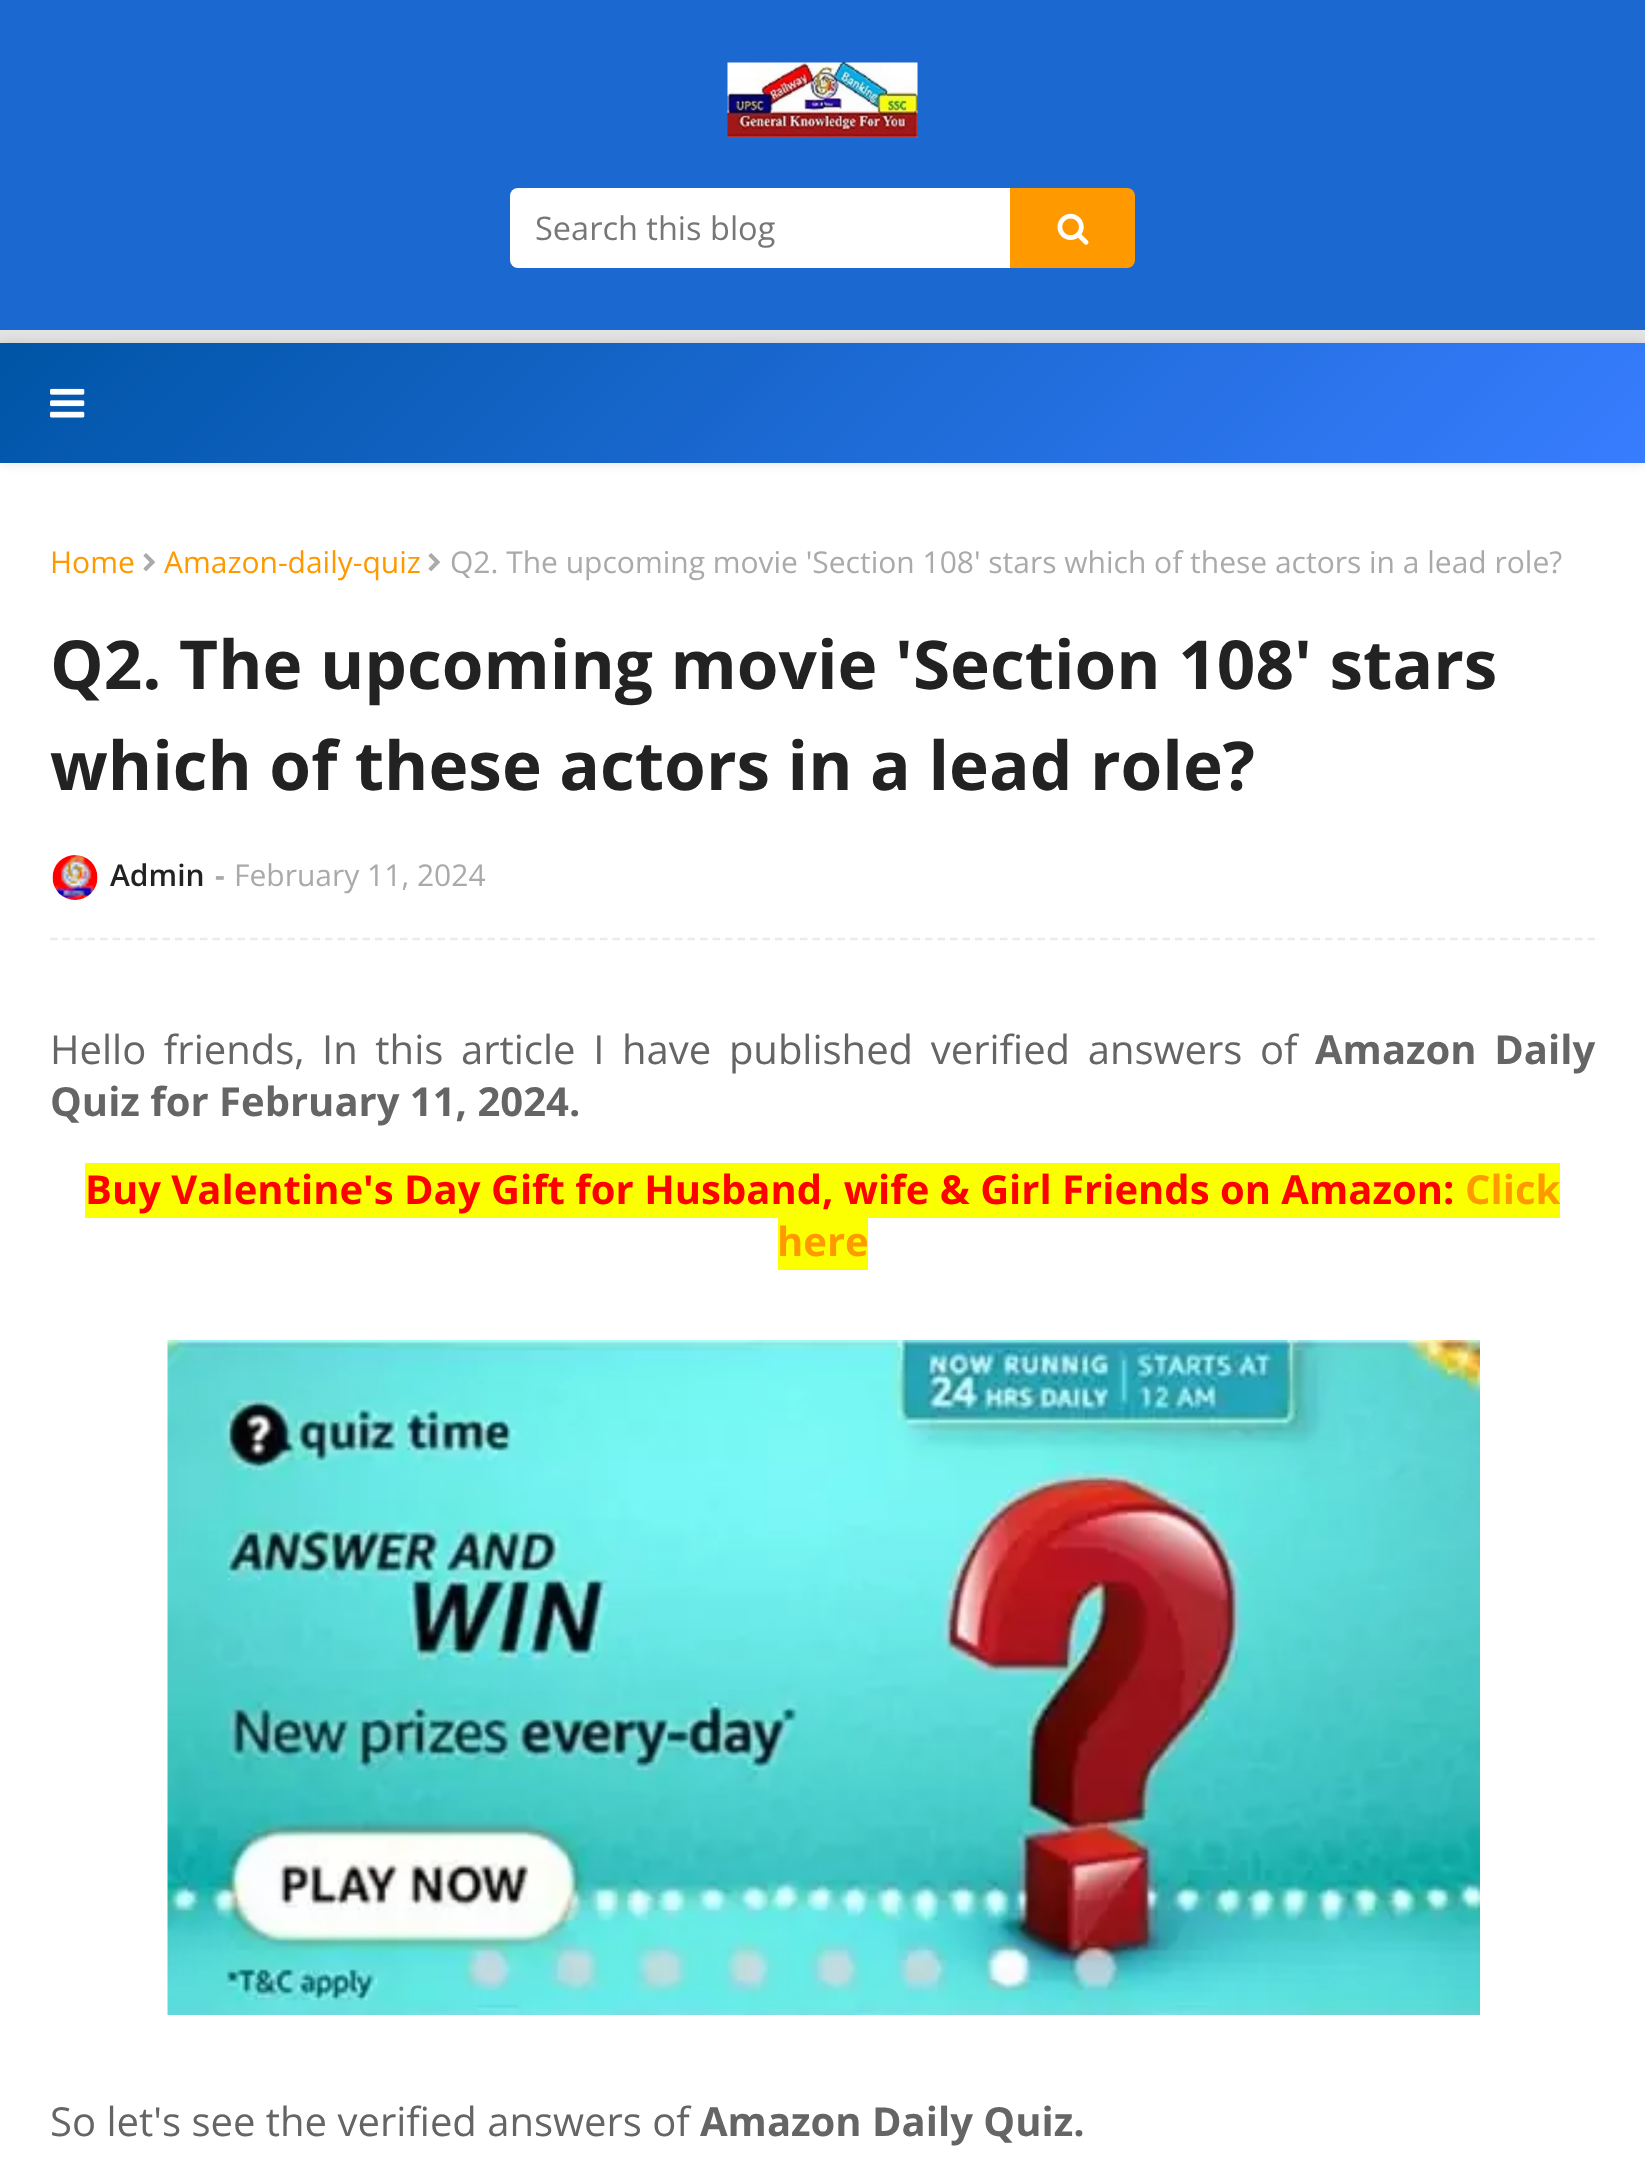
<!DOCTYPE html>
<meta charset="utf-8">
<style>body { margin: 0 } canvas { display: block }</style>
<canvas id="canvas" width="1645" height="2176"></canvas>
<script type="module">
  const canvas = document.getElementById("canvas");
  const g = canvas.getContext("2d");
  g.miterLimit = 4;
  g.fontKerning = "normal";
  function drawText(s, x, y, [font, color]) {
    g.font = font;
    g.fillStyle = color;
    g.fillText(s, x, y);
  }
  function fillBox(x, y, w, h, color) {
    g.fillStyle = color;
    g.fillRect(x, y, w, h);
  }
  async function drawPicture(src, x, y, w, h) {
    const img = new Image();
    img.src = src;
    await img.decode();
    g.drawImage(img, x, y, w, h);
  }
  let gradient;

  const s1 = ["32.5px Open Sans", "#777777"];
  const s2 = ["30px Open Sans", "#FF9900"];
  const s3 = ["30px Open Sans", "#AAAAAA"];
  const s4 = ["bold 67.5px Open Sans", "#222222"];
  const s5 = ["600 30px Open Sans", "#222222"];
  const s6 = ["bold 30px Open Sans", "#AAAAAA"];
  const s7 = ["40px Open Sans", "#656565"];
  const s8 = ["bold 40px Open Sans", "#656565"];
  const s9 = ["bold 40px Open Sans", "#FF0000"];
  const s10 = ["bold 40px Open Sans", "#FF9900"];

  fillBox(0, 0, 1645, 2176, "#FFFFFF");
  fillBox(0, 0, 1645, 330, "#1B68D1");
  fillBox(0, 330, 1645, 13, "#E3E3E3");
  await drawPicture("pic1.png", 727, 62, 191, 76);
  g.fillStyle = "#FFFFFF";
  g.beginPath();
  g.roundRect(510, 188, 500, 80, [8, 0, 0, 8]);
  g.fill();
  drawText("Search this blog", 535, 240, s1);
  g.fillStyle = "#FF9900";
  g.beginPath();
  g.roundRect(1010, 188, 125, 80, [0, 8, 8, 0]);
  g.fill();
  await drawPicture("pic2.png", 1057, 213, 32, 32);
  g.fillStyle = "rgba(0, 0, 0, 0.12)";
  g.filter = "blur(6px)";
  g.beginPath();
  g.rect(0, 343, 1645, 120);
  g.fill();
  g.filter = "none";
  gradient = g.createLinearGradient(381, -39, 1264, 844);
  gradient.addColorStop(0, "#0055A6");
  gradient.addColorStop(1, "#377DFF");
  g.fillStyle = gradient;
  g.fillRect(0, 343, 1645, 120);
  await drawPicture("pic3.png", 50, 388, 35, 30);
  drawText("Home", 50, 573, s2);
  await drawPicture("pic4.png", 143, 553, 12, 18);
  drawText("Amazon-daily-quiz", 164, 573, s2);
  await drawPicture("pic4.png", 428, 553, 12, 18);
  drawText("Q2. The upcoming movie 'Section 108' stars which of these actors in a lead role?", 450, 573, s3);
  drawText("Q2. The upcoming movie 'Section 108' stars", 50, 689, s4);
  drawText("which of these actors in a lead role?", 50, 790, s4);
  await drawPicture("pic5.png", 52, 855, 46, 45);
  drawText("Admin", 110, 886, s5);
  drawText("-", 215, 886, s6);
  drawText("February 11, 2024", 234, 886, s3);
  g.beginPath();
  g.moveTo(50, 939);
  g.lineTo(1595, 939);
  g.strokeStyle = "#EBEBEB";
  g.lineWidth = 2.5;
  g.setLineDash([7.5, 5]);
  g.stroke();
  g.wordSpacing = "7.25px";
  drawText("Hello friends,", 50, 1064, s7);
  drawText("In this article I have published verified answers of", 322, 1064, s7);
  drawText("Amazon Daily", 1315, 1064, s8);
  g.wordSpacing = "0px";
  drawText("Quiz for February 11, 2024.", 50, 1116, s8);
  fillBox(85, 1163, 1475, 55, "#FCFF01");
  drawText("Buy Valentine's Day Gift for Husband, wife & Girl Friends on Amazon:", 85, 1204, s9);
  drawText("Click", 1465, 1204, s10);
  fillBox(778, 1218, 90, 52, "#FCFF01");
  drawText("here", 777, 1256, s10);
  await drawPicture("pic6.png", 167, 1340, 1313, 675);
  drawText("So let's see the verified answers of", 50, 2136, s7);
  drawText("Amazon Daily Quiz.", 700, 2136, s8);
</script>
